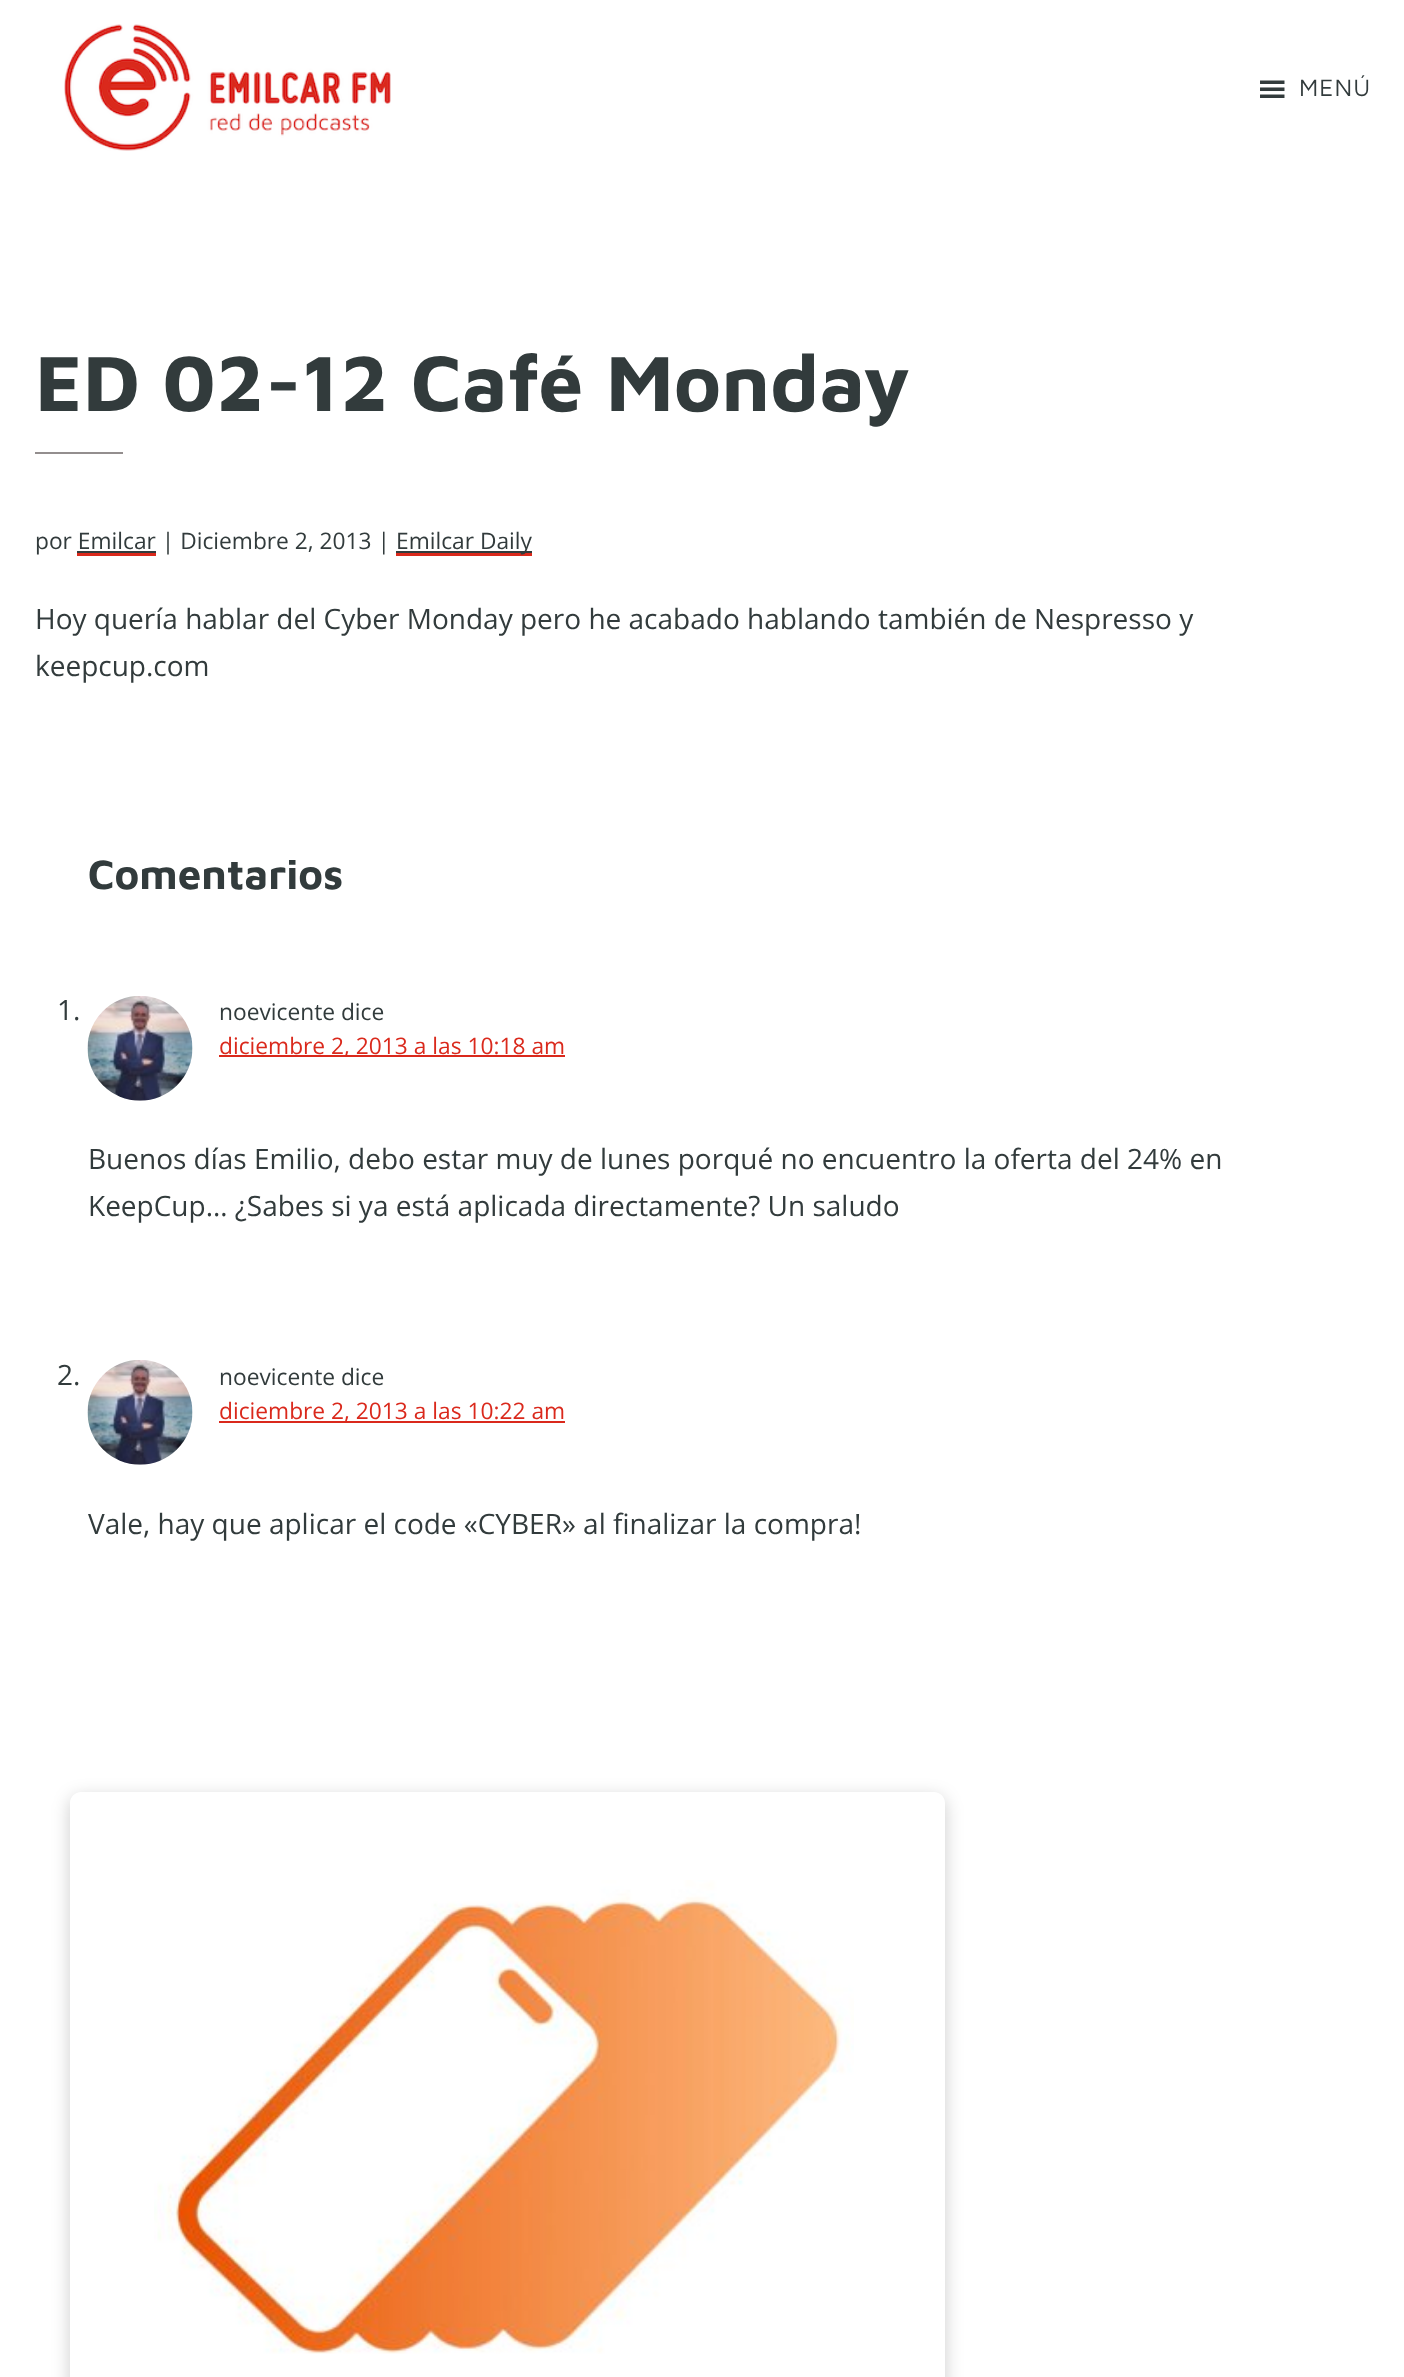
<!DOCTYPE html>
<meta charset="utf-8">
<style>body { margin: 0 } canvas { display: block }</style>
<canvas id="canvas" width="1404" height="2377"></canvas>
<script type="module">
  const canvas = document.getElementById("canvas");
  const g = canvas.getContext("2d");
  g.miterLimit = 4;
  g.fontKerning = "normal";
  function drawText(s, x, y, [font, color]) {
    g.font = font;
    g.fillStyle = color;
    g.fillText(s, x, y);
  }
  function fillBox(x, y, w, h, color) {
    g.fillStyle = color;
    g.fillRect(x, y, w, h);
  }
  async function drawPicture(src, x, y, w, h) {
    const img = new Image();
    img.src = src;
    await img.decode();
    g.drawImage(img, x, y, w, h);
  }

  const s1 = ["24.5px Maven Pro", "#323B3C"];
  const s2 = ["bold 80.5px Maven Pro", "#323B3C"];
  const s3 = ["22.75px Open Sans", "#323B3C"];
  const s4 = ["28px Open Sans", "#323B3C"];
  const s5 = ["bold 42px Maven Pro", "#323B3C"];
  const s6 = ["22.75px Open Sans", "#DA291C"];

  fillBox(0, 0, 1404, 2377, "#FFFFFF");
  await drawPicture("pic1.png", 64, 24, 327, 127);
  await drawPicture("pic2.png", 1260, 80, 25, 18);
  g.letterSpacing = "1px";
  drawText("MENÚ", 1299, 96, s1);
  g.letterSpacing = "0px";
  drawText("ED 02-12 Café Monday", 35, 411, s2);
  fillBox(35, 452, 88, 2, "#938E8E");
  drawText("por Emilcar | Diciembre 2, 2013 |", 35, 549, s3);
  fillBox(396, 553, 136, 3, "#DA291C");
  fillBox(396, 551, 136, 2, "#323B3C");
  drawText("Emilcar Daily", 396, 549, s3);
  fillBox(77, 551, 79, 2, "#323B3C");
  fillBox(77, 553, 79, 3, "#DA291C");
  drawText("Hoy quería hablar del Cyber Monday pero he acabado hablando también de Nespresso y", 35, 629, s4);
  drawText("keepcup.com", 35, 676, s4);
  drawText("Comentarios", 88, 889, s5);
  drawText("1.", 57, 1020, s4);
  await drawPicture("pic3.png", 87, 996, 106, 105);
  drawText("noevicente dice", 219, 1020, s3);
  fillBox(219, 1055, 346, 2, "#DA291C");
  drawText("diciembre 2, 2013 a las 10:18 am", 219, 1054, s6);
  drawText("Buenos días Emilio, debo estar muy de lunes porqué no encuentro la oferta del 24% en", 88, 1169, s4);
  drawText("KeepCup… ¿Sabes si ya está aplicada directamente? Un saludo", 88, 1216, s4);
  drawText("2.", 57, 1385, s4);
  await drawPicture("pic4.png", 87, 1360, 106, 105);
  drawText("noevicente dice", 219, 1385, s3);
  fillBox(219, 1421, 346, 2, "#DA291C");
  drawText("diciembre 2, 2013 a las 10:22 am", 219, 1419, s6);
  drawText("Vale, hay que aplicar el code «CYBER» al finalizar la compra!", 88, 1534, s4);
  g.save();
  g.beginPath();
  g.moveTo(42, 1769);
  g.lineTo(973, 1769);
  g.lineTo(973, 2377);
  g.lineTo(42, 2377);
  g.closePath();
  g.moveTo(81, 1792);
  g.lineTo(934, 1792);
  g.bezierCurveTo(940, 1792, 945, 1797, 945, 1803);
  g.lineTo(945, 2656);
  g.bezierCurveTo(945, 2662, 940, 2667, 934, 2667);
  g.lineTo(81, 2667);
  g.bezierCurveTo(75, 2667, 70, 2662, 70, 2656);
  g.lineTo(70, 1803);
  g.bezierCurveTo(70, 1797, 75, 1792, 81, 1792);
  g.closePath();
  g.clip("evenodd");
  g.fillStyle = "rgba(0, 0, 0, 0.2)";
  g.filter = "blur(9px)";
  g.beginPath();
  g.roundRect(70, 1797, 875, 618, 11);
  g.fill();
  g.filter = "none";
  g.restore();
  await drawPicture("pic5.png", 154, 1880, 700, 474);
</script>
